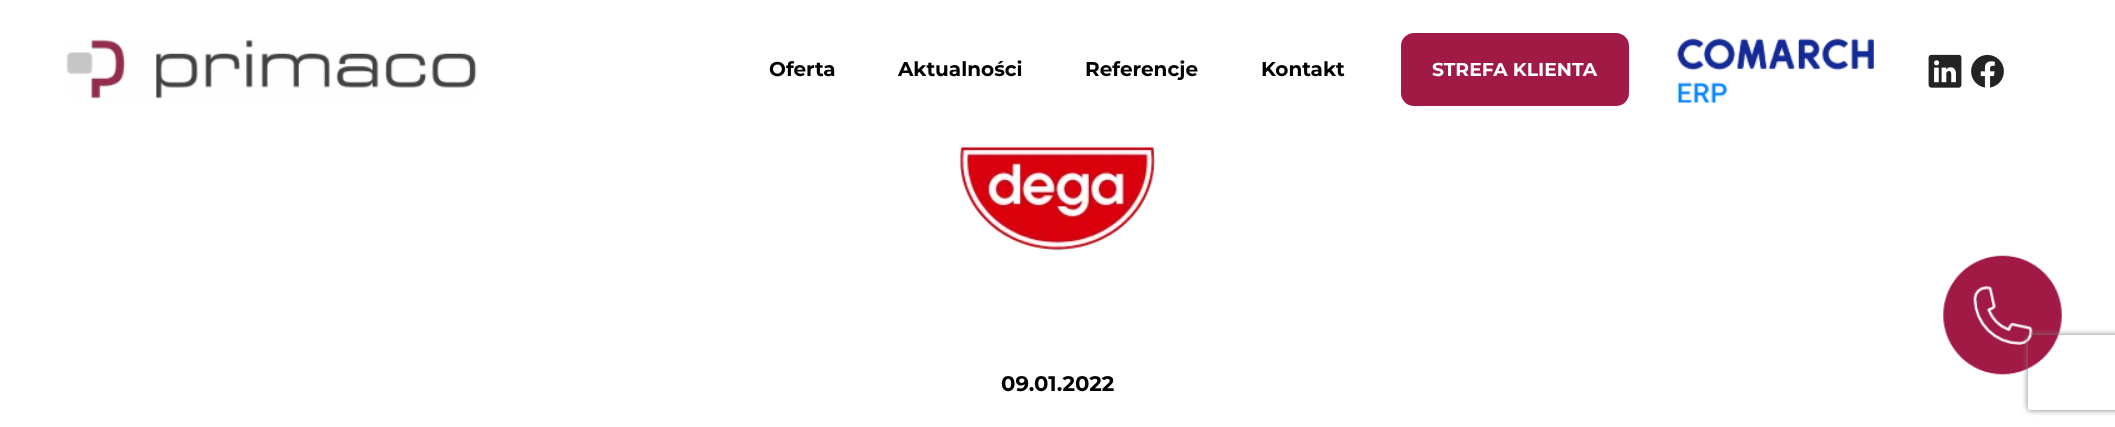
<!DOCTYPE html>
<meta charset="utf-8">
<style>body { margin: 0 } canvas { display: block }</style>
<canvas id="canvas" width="2115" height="427"></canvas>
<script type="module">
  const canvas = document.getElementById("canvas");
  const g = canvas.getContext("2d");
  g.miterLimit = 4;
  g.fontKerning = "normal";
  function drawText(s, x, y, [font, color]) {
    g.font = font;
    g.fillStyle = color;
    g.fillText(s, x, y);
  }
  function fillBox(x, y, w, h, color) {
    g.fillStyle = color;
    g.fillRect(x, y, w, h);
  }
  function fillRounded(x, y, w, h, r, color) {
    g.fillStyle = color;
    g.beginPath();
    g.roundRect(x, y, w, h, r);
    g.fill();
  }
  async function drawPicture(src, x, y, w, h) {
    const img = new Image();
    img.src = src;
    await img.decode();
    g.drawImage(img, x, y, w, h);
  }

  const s1 = ["bold 20px Montserrat", "#000000"];
  const s2 = ["bold 18.75px Montserrat", "#FFFFFF"];
  const s3 = ["bold 21.25px Montserrat", "#000000"];

  fillBox(0, 0, 2115, 427, "#FFFFFF");
  await drawPicture("pic1.png", 66, 39, 411, 60);
  drawText("Oferta", 769, 76, s1);
  drawText("Aktualności", 898, 76, s1);
  drawText("Referencje", 1085, 76, s1);
  drawText("Kontakt", 1261, 76, s1);
  fillRounded(1401, 33, 228, 73, 13, "#A11945");
  drawText("STREFA KLIENTA", 1432, 76, s2);
  await drawPicture("pic2.png", 1677, 38, 197, 65);
  await drawPicture("pic3.png", 1928, 54, 34, 34);
  await drawPicture("pic4.png", 1971, 54, 33, 34);
  await drawPicture("pic5.png", 959, 146, 197, 105);
  drawText("09.01.2022", 1001, 391, s3);
  await drawPicture("pic6.png", 1943, 255, 119, 120);
  g.save();
  g.beginPath();
  g.moveTo(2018, 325);
  g.lineTo(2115, 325);
  g.lineTo(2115, 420);
  g.lineTo(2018, 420);
  g.closePath();
  g.moveTo(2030.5, 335);
  g.lineTo(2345.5, 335);
  g.bezierCurveTo(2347, 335, 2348, 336, 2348, 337.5);
  g.lineTo(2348, 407.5);
  g.bezierCurveTo(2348, 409, 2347, 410, 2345.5, 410);
  g.lineTo(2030.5, 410);
  g.bezierCurveTo(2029, 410, 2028, 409, 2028, 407.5);
  g.lineTo(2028, 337.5);
  g.bezierCurveTo(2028, 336, 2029, 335, 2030.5, 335);
  g.closePath();
  g.clip("evenodd");
  g.fillStyle = "#808080";
  g.filter = "blur(3px)";
  g.beginPath();
  g.roundRect(2028, 335, 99, 75, 2.5);
  g.fill();
  g.filter = "none";
  g.restore();
</script>
